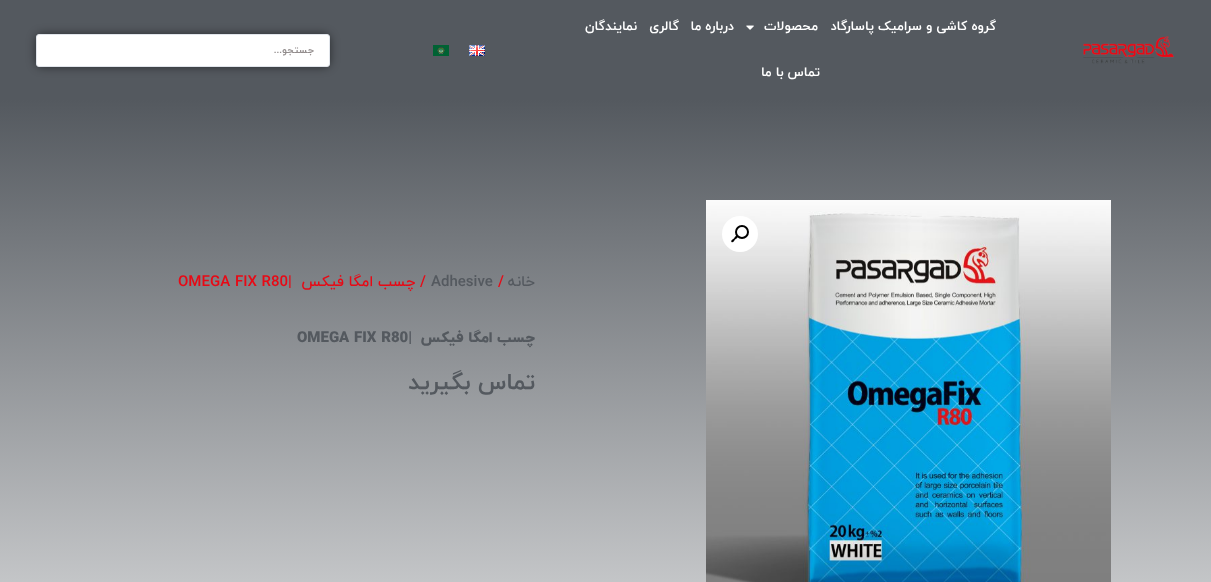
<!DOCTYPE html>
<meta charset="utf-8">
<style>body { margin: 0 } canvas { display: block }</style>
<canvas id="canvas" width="1211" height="582"></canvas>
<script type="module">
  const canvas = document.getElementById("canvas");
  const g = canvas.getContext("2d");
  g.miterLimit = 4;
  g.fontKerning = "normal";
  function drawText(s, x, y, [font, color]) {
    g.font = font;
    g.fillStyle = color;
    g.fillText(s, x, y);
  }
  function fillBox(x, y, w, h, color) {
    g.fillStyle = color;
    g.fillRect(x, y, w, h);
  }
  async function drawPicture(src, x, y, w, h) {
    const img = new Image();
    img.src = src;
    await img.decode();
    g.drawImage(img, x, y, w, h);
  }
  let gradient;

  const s1 = ["bold 13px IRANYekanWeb", "#FFFFFF"];
  const s2 = ["bold 10px IRANYekanWeb", "#928C8C"];
  const s3 = ["500 15px IRANYekanWeb", "#54595F"];
  const s4 = ["500 15px IRANYekanWeb", "#E80915"];
  const s5 = ["800 15px IRANYekanWeb", "#54595F"];
  const s6 = ["bold 23px IRANYekanWeb", "#54595F"];

  fillBox(0, 0, 1211, 582, "#FFFFFF");
  fillBox(0, 0, 1211, 100, "#54595F");
  await drawPicture("pic1.png", 1083, 36, 91, 28);
  g.direction = "rtl";
  drawText("گروه کاشی و سرامیک پاسارگاد", 996, 30, s1);
  drawText("محصولات", 818, 30, s1);
  await drawPicture("pic2.png", 746, 25, 8, 5);
  drawText("درباره ما", 734, 30, s1);
  drawText("گالری", 679, 30, s1);
  drawText("نمایندگان", 637, 30, s1);
  drawText("تماس با ما", 820, 76, s1);
  await drawPicture("pic3.png", 469, 45, 16, 11);
  await drawPicture("pic4.png", 433, 45, 16, 11);
  g.fillStyle = "rgba(0, 0, 0, 0.5)";
  g.filter = "blur(5px)";
  g.beginPath();
  g.roundRect(36, 34, 294, 33, 6);
  g.fill();
  g.filter = "none";
  g.fillStyle = "#FFFFFF";
  g.beginPath();
  g.roundRect(36.5, 34.5, 293, 32, 2.5);
  g.fill();
  g.strokeStyle = "#E1E5EB";
  g.stroke();
  drawText("جستجو...", 314, 53, s2);
  gradient = g.createLinearGradient(606, 100, 606, 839);
  gradient.addColorStop(0, "#54595F");
  gradient.addColorStop(1, "#FFFFFF");
  g.fillStyle = gradient;
  g.fillRect(0, 100, 1211, 482);
  await drawPicture("pic5.png", 706, 200, 405, 382);
  g.fillStyle = "#FFFFFF";
  g.beginPath();
  g.arc(740, 234, 18, 0, Math.PI * 2);
  g.fill();
  g.beginPath();
  g.arc(742, 232, 6, 0, Math.PI * 2);
  g.strokeStyle = "#000000";
  g.lineWidth = 2;
  g.stroke();
  g.fillStyle = "#000000";
  g.beginPath();
  g.moveTo(737.5, 236);
  g.bezierCurveTo(738.5, 237.5, 736, 239, 735, 239.5);
  g.bezierCurveTo(734.5, 240.5, 733, 243, 731.5, 242);
  g.bezierCurveTo(730.5, 240.5, 733, 239, 734, 238.5);
  g.bezierCurveTo(734.5, 237.5, 736, 235, 737.5, 236);
  g.closePath();
  g.fill();
  drawText("خانه", 535, 286, s3);
  g.direction = "ltr";
  drawText("/", 498, 286, s4);
  drawText("Adhesive", 431, 286, s3);
  g.direction = "rtl";
  drawText("/ چسب امگا فیکس", 426, 286, s4);
  g.direction = "ltr";
  drawText("OMEGA FIX R80|", 178, 286, s4);
  g.direction = "rtl";
  drawText("چسب امگا فیکس", 535, 342, s5);
  g.direction = "ltr";
  drawText("OMEGA FIX R80|", 297, 342, s5);
  g.direction = "rtl";
  drawText("تماس بگیرید", 535, 389, s6);
</script>
